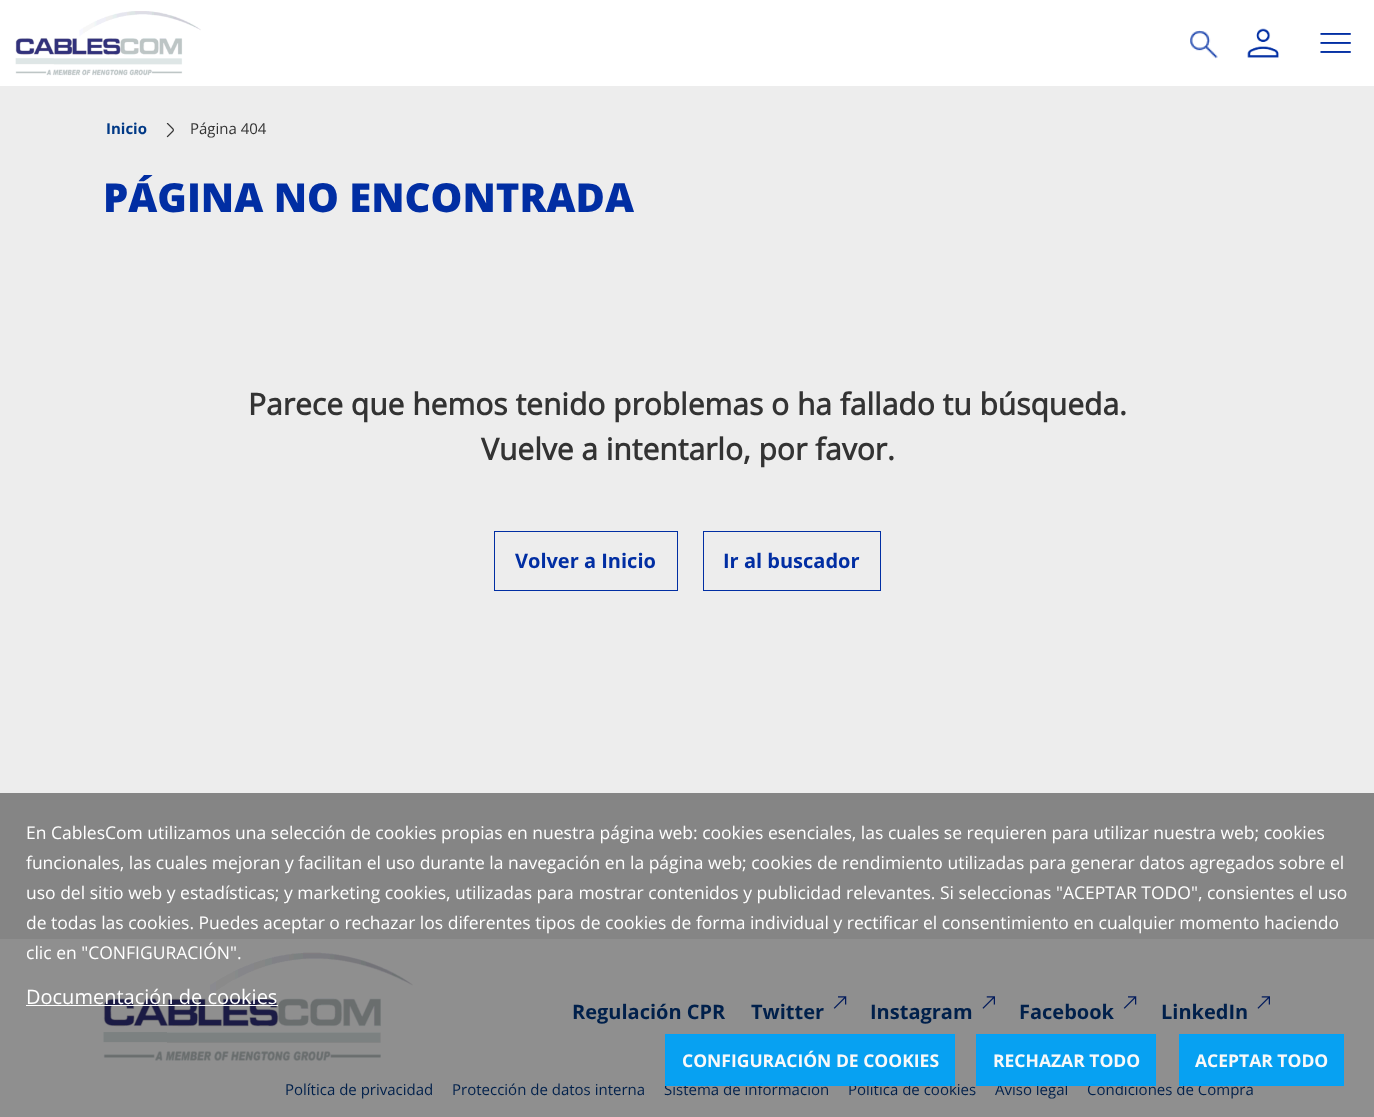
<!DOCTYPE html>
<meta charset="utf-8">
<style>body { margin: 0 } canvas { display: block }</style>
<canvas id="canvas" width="1374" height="1117"></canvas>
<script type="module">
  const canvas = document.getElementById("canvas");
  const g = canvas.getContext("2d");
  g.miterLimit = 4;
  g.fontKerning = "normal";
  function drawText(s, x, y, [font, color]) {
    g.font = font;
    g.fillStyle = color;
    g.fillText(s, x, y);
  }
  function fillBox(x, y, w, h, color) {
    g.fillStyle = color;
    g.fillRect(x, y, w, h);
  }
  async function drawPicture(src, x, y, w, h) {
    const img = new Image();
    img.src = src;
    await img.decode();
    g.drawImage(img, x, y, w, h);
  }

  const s1 = ["bold 15px Open Sans", "#003986"];
  const s2 = ["15px Open Sans", "#333333"];
  const s3 = ["800 40px Open Sans", "#012EA3"];
  const s4 = ["bold 30px 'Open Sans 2'", "#333333"];
  const s5 = ["bold 20px Open Sans", "#012EA3"];
  const s6 = ["17.5px Open Sans", "#FFFFFF"];
  const s7 = ["20px Open Sans", "#FFFFFF"];
  const s8 = ["15px Open Sans", "#00204B"];
  const s9 = ["bold 17.5px Open Sans", "#F9F9F9"];
  const s10 = ["bold 20px Open Sans", "#00204B"];

  fillBox(0, 0, 1374, 1117, "#FFFFFF");
  fillBox(0, 939, 1374, 178, "#8F8F8F");
  fillBox(0, 86, 1374, 707, "#EDEDED");
  fillBox(0, 793, 1374, 146, "#858585");
  drawText("Inicio", 106, 134, s1);
  await drawPicture("pic1.png", 166, 123, 8, 15);
  drawText("Página 404", 190, 134, s2);
  drawText("PÁGINA NO ENCONTRADA", 103, 212, s3);
  drawText("Parece que hemos tenido problemas o ha fallado tu búsqueda.", 248, 415, s4);
  drawText("Vuelve a intentarlo, por favor.", 481, 460, s4);
  g.strokeStyle = "#012EA3";
  g.strokeRect(494.5, 531.5, 183, 59);
  drawText("Volver a Inicio", 515, 568, s5);
  g.strokeRect(703.5, 531.5, 177, 59);
  drawText("Ir al buscador", 723, 568, s5);
  await drawPicture("pic2.png", 15, 11, 186, 65);
  await drawPicture("pic3.png", 1190, 30, 28, 29);
  await drawPicture("pic4.png", 1247, 28, 32, 30);
  await drawPicture("pic5.png", 1320, 33, 31, 20);
  drawText("En CablesCom utilizamos una selección de cookies propias en nuestra página web: cookies esenciales, las cuales se requieren para utilizar nuestra web; cookies", 26, 839, s6);
  drawText("funcionales, las cuales mejoran y facilitan el uso durante la navegación en la página web; cookies de rendimiento utilizadas para generar datos agregados sobre el", 26, 869, s6);
  drawText("uso del sitio web y estadísticas; y marketing cookies, utilizadas para mostrar contenidos y publicidad relevantes. Si seleccionas \"ACEPTAR TODO\", consientes el uso", 26, 899, s6);
  drawText("de todas las cookies. Puedes aceptar o rechazar los diferentes tipos de cookies de forma individual y rectificar el consentimiento en cualquier momento haciendo", 26, 929, s6);
  await drawPicture("pic6.png", 103, 952, 310, 109);
  drawText("clic en \"CONFIGURACIÓN\".", 26, 959, s6);
  drawText("Documentación de cookies", 26, 1004, s7);
  fillBox(26, 1005, 252, 1, "#FFFFFF");
  drawText("Sistema de información", 664, 1095, s8);
  drawText("Política de cookies", 848, 1095, s8);
  fillBox(665, 1034, 290, 52, "rgba(0, 162, 248, 0.95)");
  g.strokeStyle = "rgba(0, 162, 248, 0.95)";
  g.strokeRect(665.5, 1034.5, 289, 51);
  drawText("CONFIGURACIÓN DE COOKIES", 682, 1067, s9);
  drawText("Aviso legal", 995, 1095, s8);
  drawText("Condiciones de Compra", 1087, 1095, s8);
  fillBox(976, 1034, 180, 52, "rgba(0, 162, 248, 0.95)");
  g.strokeRect(976.5, 1034.5, 179, 51);
  drawText("RECHAZAR TODO", 993, 1067, s9);
  fillBox(1179, 1034, 165, 52, "rgba(0, 162, 248, 0.95)");
  g.strokeRect(1179.5, 1034.5, 164, 51);
  drawText("ACEPTAR TODO", 1195, 1067, s9);
  drawText("Regulación CPR", 572, 1019, s10);
  drawText("Twitter", 751, 1019, s10);
  await drawPicture("pic7.png", 833, 996, 14, 13);
  await drawPicture("pic8.png", 982, 996, 13, 13);
  drawText("Instagram", 870, 1019, s10);
  drawText("Facebook", 1019, 1019, s10);
  await drawPicture("pic7.png", 1123, 996, 14, 13);
  drawText("LinkedIn", 1161, 1019, s10);
  await drawPicture("pic8.png", 1257, 996, 13, 13);
  drawText("Política de privacidad", 285, 1095, s8);
  drawText("Protección de datos interna", 452, 1095, s8);
</script>
